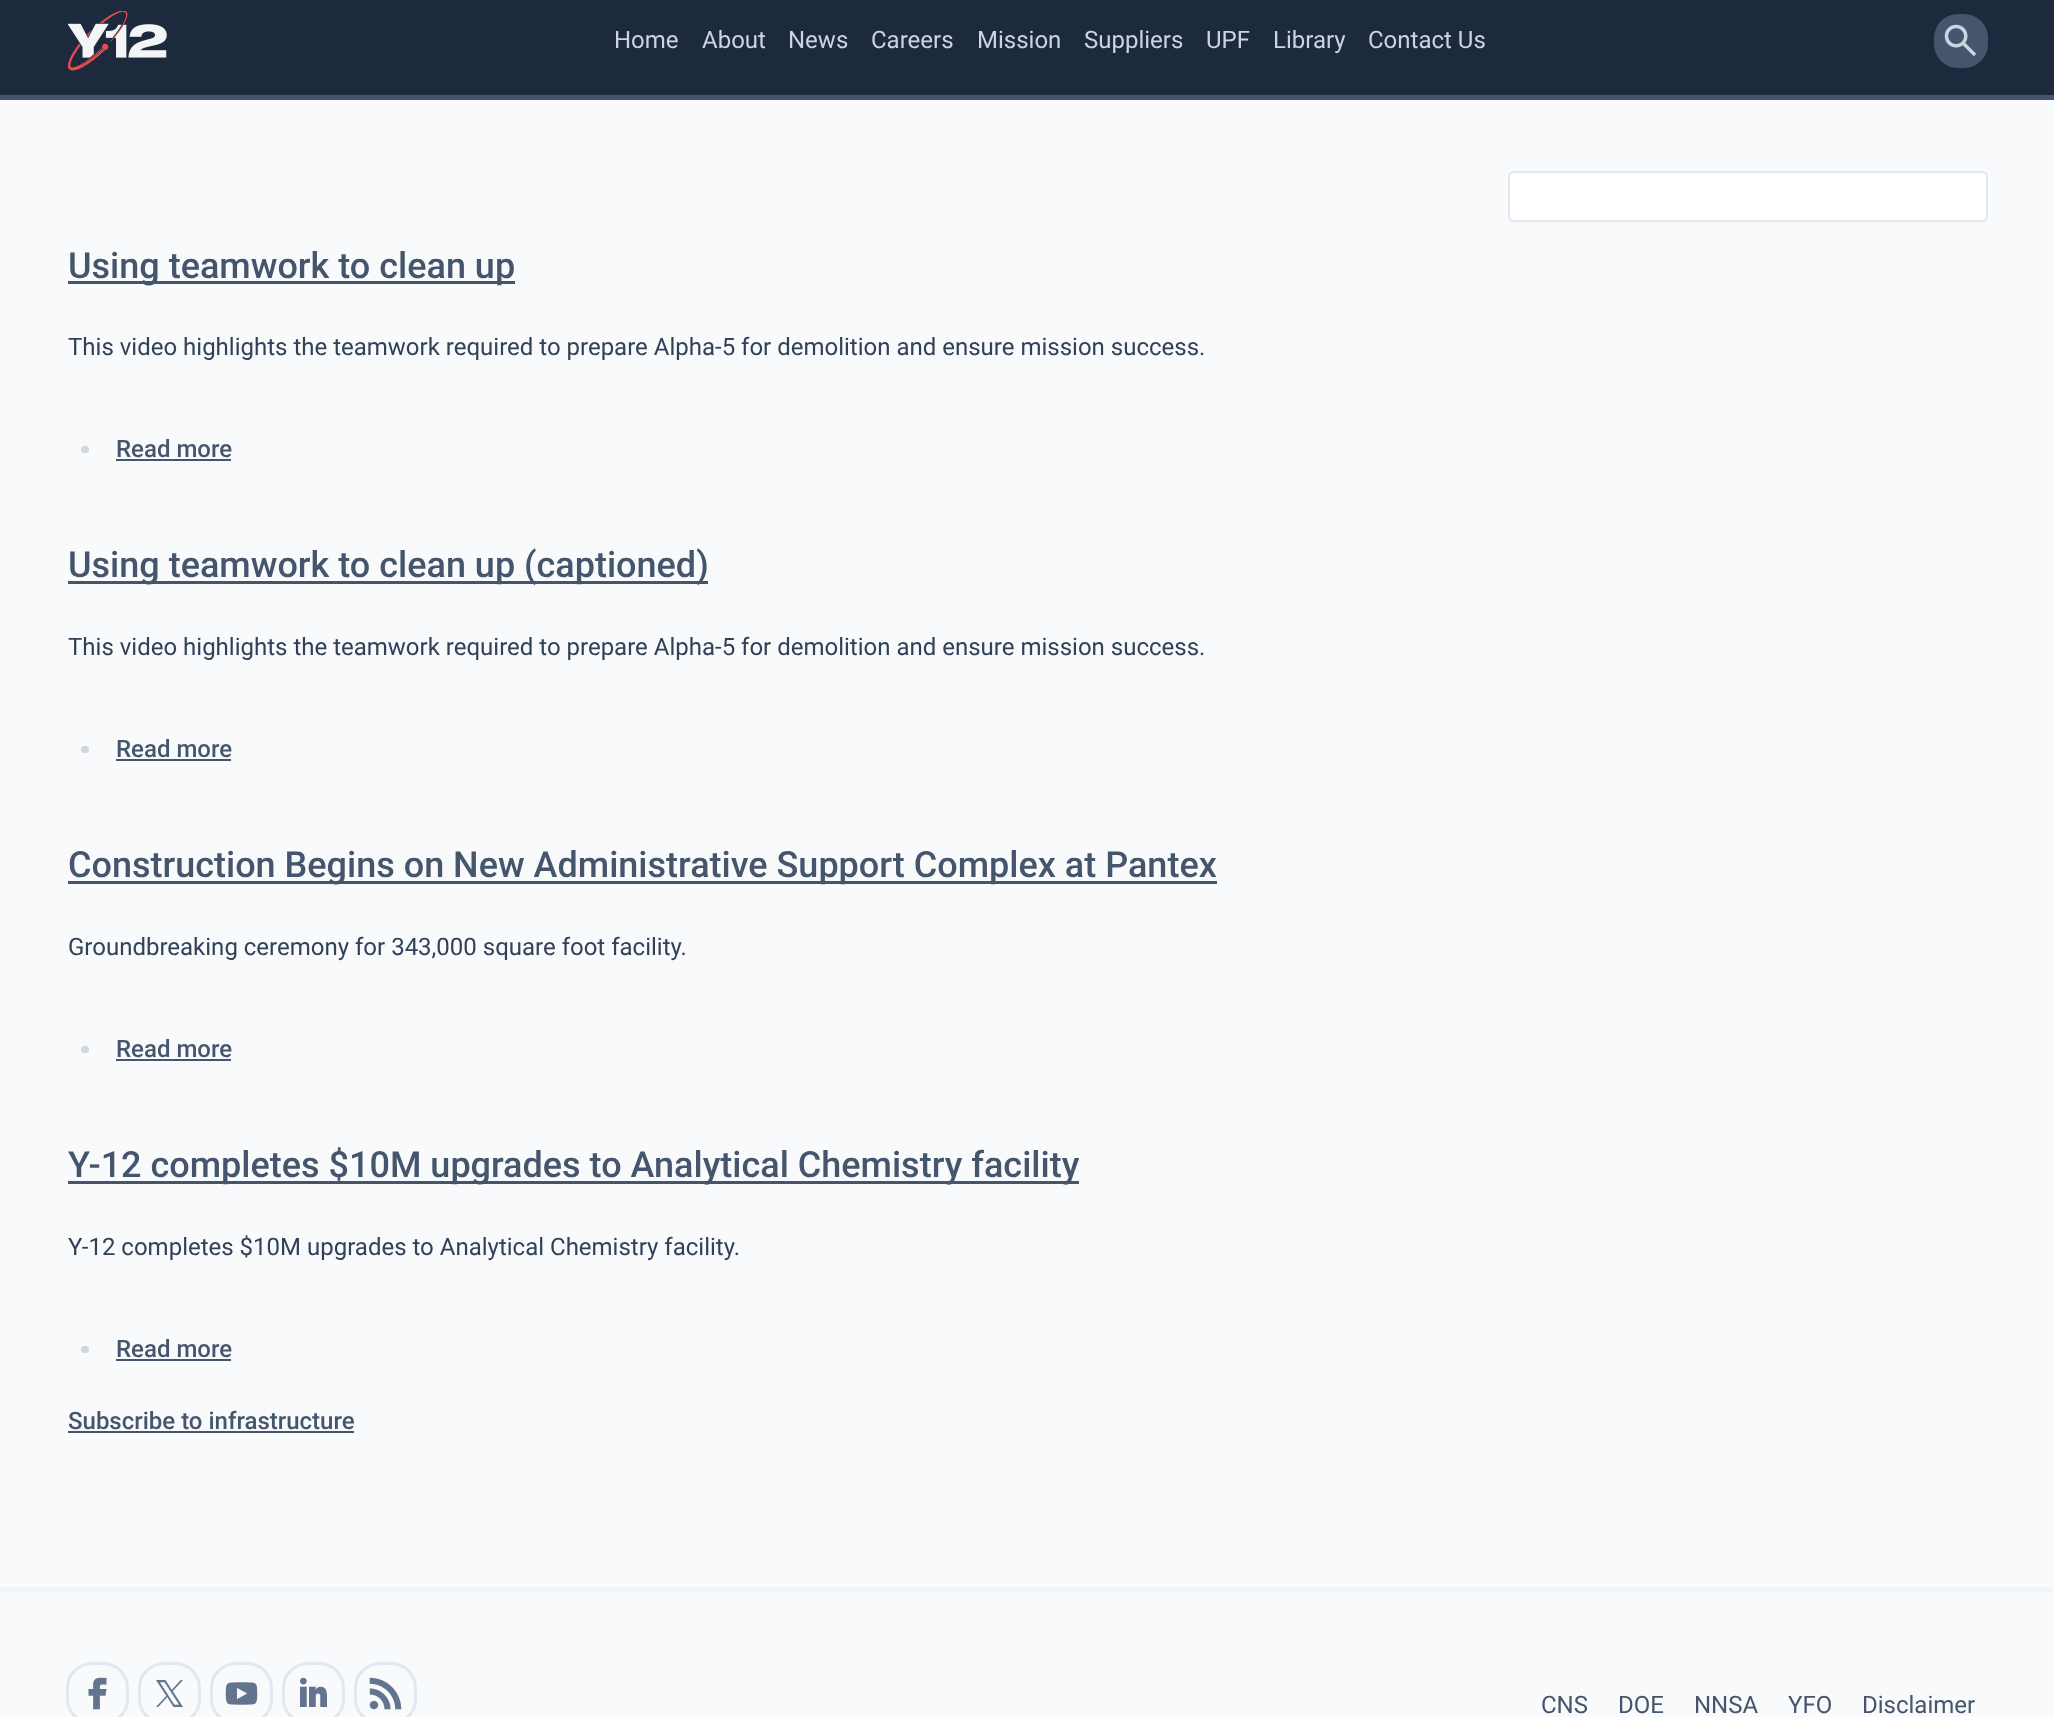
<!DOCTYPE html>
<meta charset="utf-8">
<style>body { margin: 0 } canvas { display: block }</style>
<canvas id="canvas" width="2054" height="1717"></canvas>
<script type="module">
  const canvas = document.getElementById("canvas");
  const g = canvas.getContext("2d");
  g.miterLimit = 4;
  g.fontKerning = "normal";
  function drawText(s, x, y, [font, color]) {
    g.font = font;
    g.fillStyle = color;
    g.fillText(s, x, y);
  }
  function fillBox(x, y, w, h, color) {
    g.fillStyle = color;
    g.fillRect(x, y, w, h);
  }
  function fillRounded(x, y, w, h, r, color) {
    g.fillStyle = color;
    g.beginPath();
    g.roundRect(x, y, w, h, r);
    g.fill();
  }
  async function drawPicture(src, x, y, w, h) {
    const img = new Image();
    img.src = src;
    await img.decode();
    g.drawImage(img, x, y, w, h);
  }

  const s1 = ["24px Roboto", "#CAD5E2"];
  const s2 = ["500 36px Roboto", "#45556C"];
  const s3 = ["24px Roboto", "#314158"];
  const s4 = ["500 24px Roboto", "#45556C"];
  const s5 = ["24px Roboto", "#45556C"];

  fillBox(0, 0, 2054, 1717, "#F8FAFC");
  fillBox(0, 0, 2054, 95, "#1D293D");
  fillBox(0, 95, 2054, 5, "#45556C");
  await drawPicture("pic1.png", 68, 11, 99, 60);
  drawText("Home", 614, 48, s1);
  drawText("About", 702, 48, s1);
  drawText("News", 788, 48, s1);
  drawText("Careers", 871, 48, s1);
  drawText("Mission", 977, 48, s1);
  drawText("Suppliers", 1084, 48, s1);
  drawText("UPF", 1206, 48, s1);
  drawText("Library", 1273, 48, s1);
  drawText("Contact Us", 1368, 48, s1);
  fillRounded(1934, 14, 54, 54, 24, "#45556C");
  await drawPicture("pic2.png", 1944, 24, 33, 33);
  g.fillStyle = "#FFFFFF";
  g.beginPath();
  g.roundRect(1509, 172, 478, 49, 5);
  g.fill();
  g.strokeStyle = "#E2E8F0";
  g.lineWidth = 2;
  g.stroke();
  fillBox(68, 281, 447, 3, "#45556C");
  drawText("Using teamwork to clean up", 68, 278, s2);
  drawText("This video highlights the teamwork required to prepare Alpha-5 for demolition and ensure mission success.", 68, 355, s3);
  fillRounded(81, 446, 8, 7, 3.5, "#D1D5DC");
  drawText("Read more", 116, 457, s4);
  fillBox(116, 459, 115, 2, "#45556C");
  fillBox(68, 581, 640, 3, "#45556C");
  drawText("Using teamwork to clean up (captioned)", 68, 577, s2);
  drawText("This video highlights the teamwork required to prepare Alpha-5 for demolition and ensure mission success.", 68, 655, s3);
  fillRounded(81, 746, 8, 7, 3.5, "#D1D5DC");
  drawText("Read more", 116, 757, s4);
  fillBox(116, 759, 115, 2, "#45556C");
  fillBox(68, 881, 1149, 3, "#45556C");
  drawText("Construction Begins on New Administrative Support Complex at Pantex", 68, 877, s2);
  drawText("Groundbreaking ceremony for 343,000 square foot facility.", 68, 955, s3);
  fillRounded(81, 1046, 8, 7, 3.5, "#D1D5DC");
  drawText("Read more", 116, 1057, s4);
  fillBox(116, 1059, 115, 2, "#45556C");
  fillBox(68, 1181, 1011, 3, "#45556C");
  drawText("Y-12 completes $10M upgrades to Analytical Chemistry facility", 68, 1177, s2);
  drawText("Y-12 completes $10M upgrades to Analytical Chemistry facility.", 68, 1255, s3);
  fillRounded(81, 1346, 8, 7, 3.5, "#D1D5DC");
  drawText("Read more", 116, 1357, s4);
  fillBox(116, 1359, 115, 2, "#45556C");
  drawText("Subscribe to infrastructure", 68, 1429, s4);
  fillBox(68, 1431, 286, 2, "#45556C");
  fillBox(0, 1587, 2054, 5, "#F1F5F9");
  g.beginPath();
  g.roundRect(67.5, 1663.5, 60, 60, 24.5);
  g.lineWidth = 3;
  g.stroke();
  await drawPicture("pic3.png", 88, 1677, 19, 33);
  g.beginPath();
  g.roundRect(139.5, 1663.5, 60, 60, 24.5);
  g.stroke();
  await drawPicture("pic4.png", 156, 1680, 27, 27);
  g.beginPath();
  g.roundRect(211.5, 1663.5, 60, 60, 24.5);
  g.stroke();
  await drawPicture("pic5.png", 225, 1682, 33, 23);
  g.beginPath();
  g.roundRect(283.5, 1663.5, 60, 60, 24.5);
  g.stroke();
  await drawPicture("pic6.png", 300, 1677, 27, 30);
  g.beginPath();
  g.roundRect(355.5, 1663.5, 60, 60, 24.5);
  g.stroke();
  await drawPicture("pic7.png", 369, 1677, 33, 33);
  drawText("CNS", 1541, 1713, s5);
  drawText("DOE", 1618, 1713, s5);
  drawText("NNSA", 1694, 1713, s5);
  drawText("YFO", 1788, 1713, s5);
  drawText("Disclaimer", 1862, 1713, s5);
</script>
